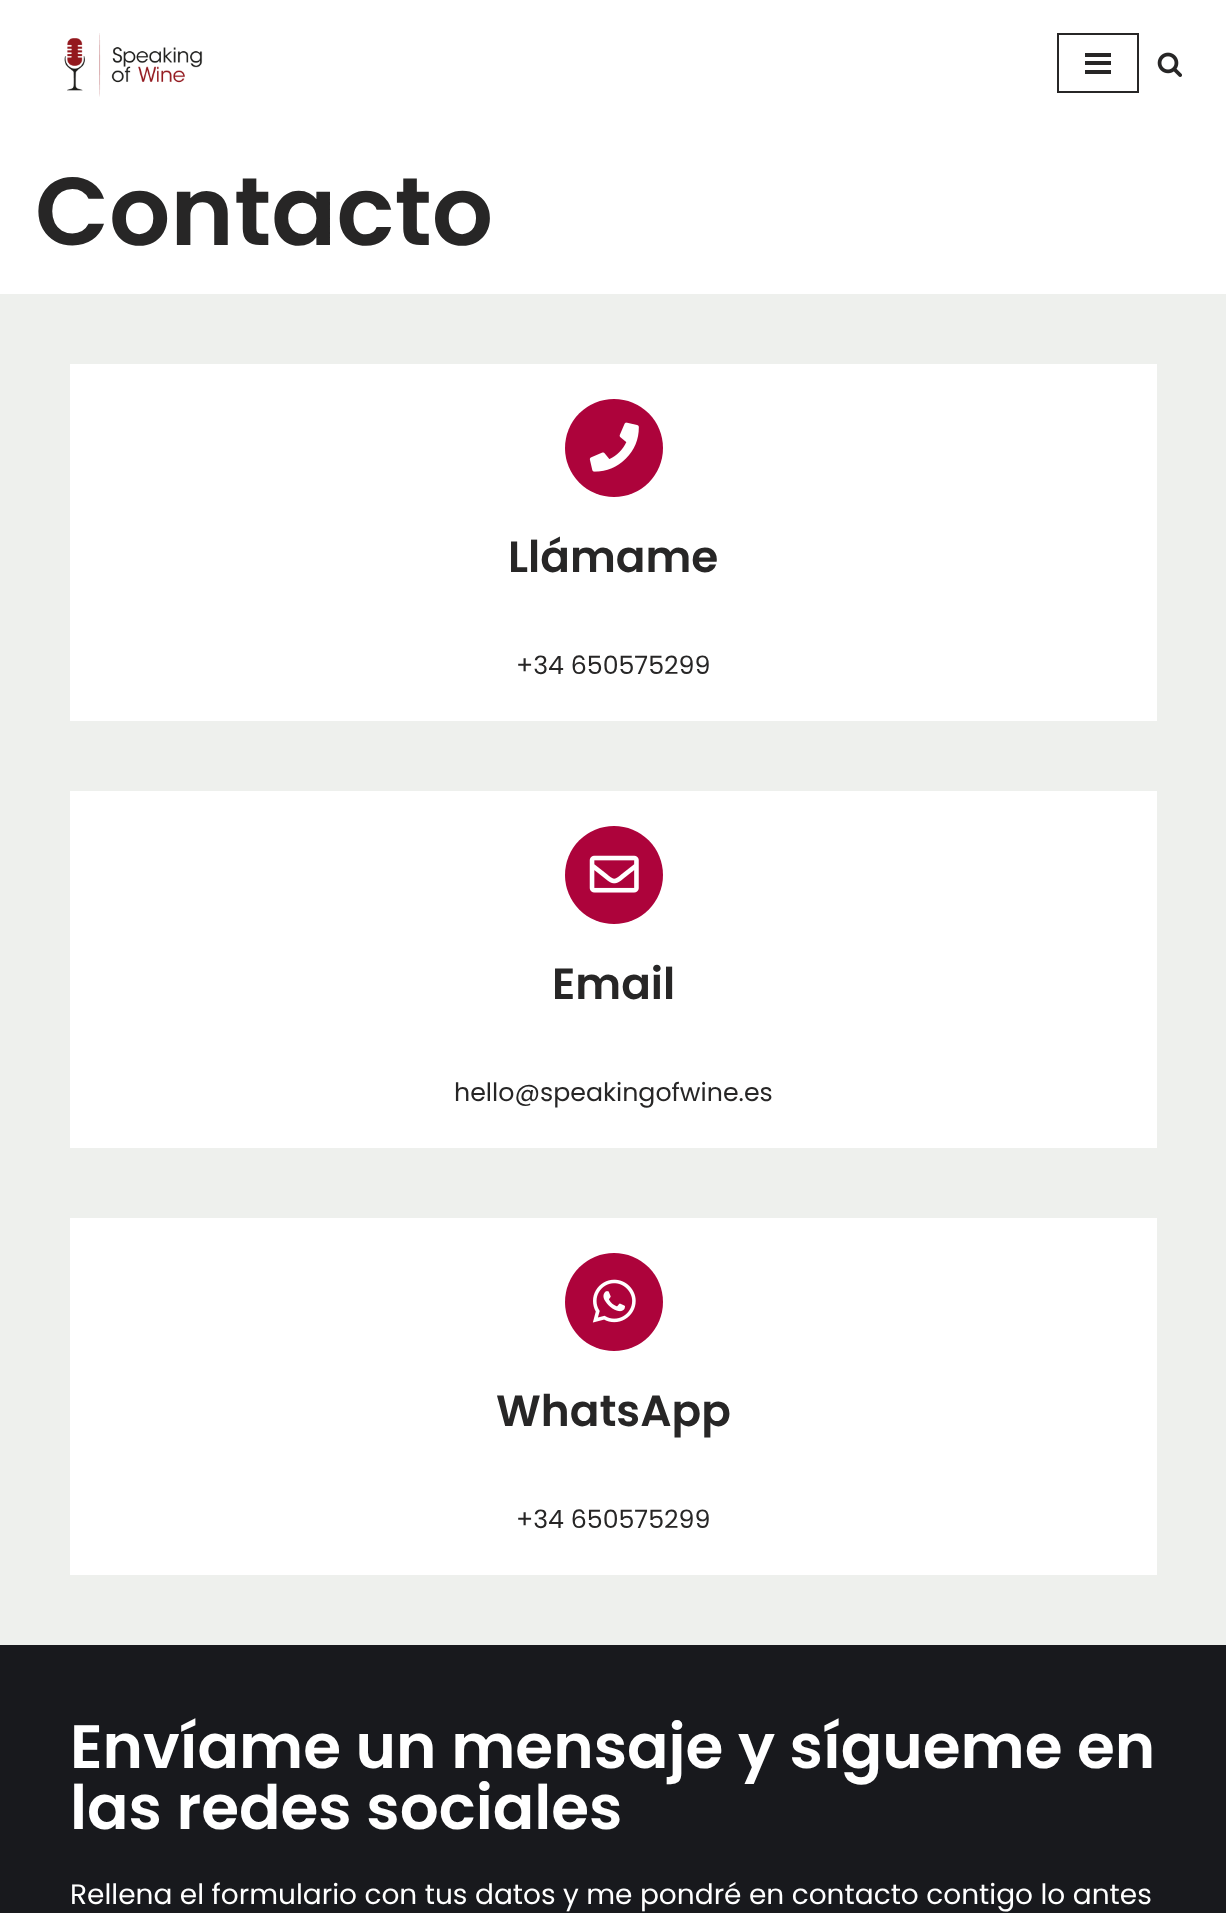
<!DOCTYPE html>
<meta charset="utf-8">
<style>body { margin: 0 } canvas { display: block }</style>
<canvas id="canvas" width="1226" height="1913"></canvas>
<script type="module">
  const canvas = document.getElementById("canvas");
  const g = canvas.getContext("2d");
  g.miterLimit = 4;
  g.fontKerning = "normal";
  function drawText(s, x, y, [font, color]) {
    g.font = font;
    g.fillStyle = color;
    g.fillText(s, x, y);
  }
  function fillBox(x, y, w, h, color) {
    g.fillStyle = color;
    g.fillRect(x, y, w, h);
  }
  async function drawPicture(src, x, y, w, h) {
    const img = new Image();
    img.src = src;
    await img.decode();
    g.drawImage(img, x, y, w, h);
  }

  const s1 = ["600 96.25px Poppins", "#272626"];
  const s2 = ["600 43.75px Poppins", "#272626"];
  const s3 = ["25.25px Poppins", "#272626"];
  const s4 = ["600 61.25px Poppins", "#FFFFFF"];
  const s5 = ["28px Poppins", "#FFFFFF"];

  fillBox(0, 0, 1226, 1913, "#FFFFFF");
  await drawPicture("pic1.png", 64, 33, 139, 64);
  g.strokeStyle = "#272626";
  g.lineWidth = 2;
  g.strokeRect(1058, 34, 80, 58);
  fillBox(1085, 53, 26, 4, "#272626");
  fillBox(1085, 61, 26, 4, "#272626");
  fillBox(1085, 70, 26, 4, "#272626");
  await drawPicture("pic2.png", 1157, 52, 25, 25);
  drawText("Contacto", 35, 245, s1);
  fillBox(0, 294, 1226, 1351, "#EEF0ED");
  fillBox(70, 364, 1087, 357, "#FFFFFF");
  g.fillStyle = "#AD033B";
  g.beginPath();
  g.arc(614, 448, 49, 0, Math.PI * 2);
  g.fill();
  await drawPicture("pic3.png", 589, 422, 50, 50);
  drawText("Llámame", 508, 572, s2);
  drawText("+34 650575299", 516, 674, s3);
  fillBox(70, 791, 1087, 357, "#FFFFFF");
  g.fillStyle = "#AD033B";
  g.beginPath();
  g.arc(614, 875, 49, 0, Math.PI * 2);
  g.fill();
  await drawPicture("pic4.png", 589, 855, 50, 38);
  drawText("Email", 552, 999, s2);
  drawText("hello@speakingofwine.es", 454, 1101, s3);
  fillBox(70, 1218, 1087, 357, "#FFFFFF");
  g.fillStyle = "#AD033B";
  g.beginPath();
  g.arc(614, 1302, 49, 0, Math.PI * 2);
  g.fill();
  await drawPicture("pic5.png", 592, 1279, 44, 44);
  drawText("WhatsApp", 496, 1426, s2);
  drawText("+34 650575299", 516, 1528, s3);
  fillBox(0, 1645, 1226, 268, "#18191D");
  drawText("Envíame un mensaje y sígueme en", 70, 1768, s4);
  drawText("las redes sociales", 70, 1829, s4);
  drawText("Rellena el formulario con tus datos y me pondré en contacto contigo lo antes", 70, 1904, s5);
</script>
